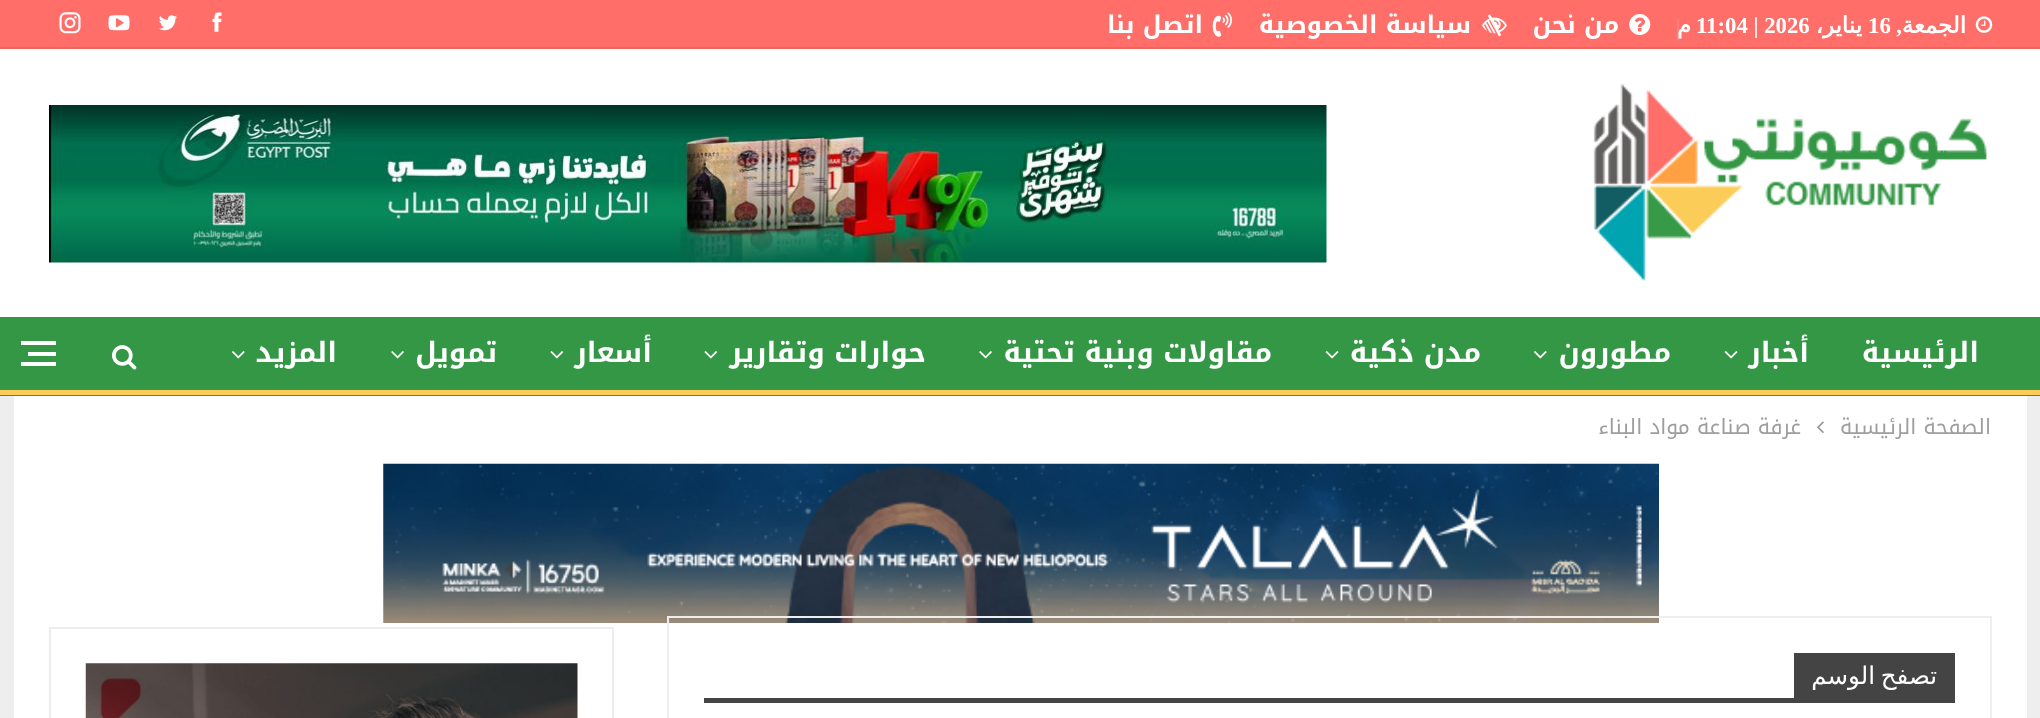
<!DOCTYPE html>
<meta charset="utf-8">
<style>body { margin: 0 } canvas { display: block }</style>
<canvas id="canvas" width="2040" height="718"></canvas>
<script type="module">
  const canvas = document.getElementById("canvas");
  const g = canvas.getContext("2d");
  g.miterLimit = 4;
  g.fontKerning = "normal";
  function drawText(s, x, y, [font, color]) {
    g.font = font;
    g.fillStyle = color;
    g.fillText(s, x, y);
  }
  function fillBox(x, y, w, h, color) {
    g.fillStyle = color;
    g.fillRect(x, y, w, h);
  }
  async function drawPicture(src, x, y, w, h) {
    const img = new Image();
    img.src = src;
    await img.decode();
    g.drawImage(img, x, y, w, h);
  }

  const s1 = ["bold 22.75px DejaVu Sans", "#FFFFFF"];
  const s2 = ["bold 22.75px Liberation Serif", "#FFFFFF"];
  const s3 = ["bold 24.5px Noto Kufi Arabic", "#FFFFFF"];
  const s4 = ["bold 28px Noto Kufi Arabic", "#FFFFFF"];
  const s5 = ["21px Noto Kufi Arabic", "#9E9E9E"];
  const s6 = ["24.5px DejaVu Sans", "#FFFFFF"];

  fillBox(0, 0, 2040, 718, "#EEEEEE");
  fillBox(0, 49, 2040, 268, "#FFFFFF");
  fillBox(0, 0, 2040, 47, "#FF6E69");
  fillBox(0, 47, 2040, 2, "#ED6662");
  await drawPicture("pic1.png", 1975, 16, 18, 17);
  g.direction = "rtl";
  drawText("الجمعة", 1966, 33, s1);
  g.direction = "ltr";
  drawText("16", 1868, 33, s2);
  g.direction = "rtl";
  drawText("يناير،", 1862, 33, s1);
  g.direction = "ltr";
  drawText("11:04 | 2026", 1696, 33, s2);
  fillBox(1677, 19, 2, 21, "rgba(255, 255, 255, 0.1)");
  g.direction = "rtl";
  drawText(",", 1902, 33, s2);
  drawText("م", 1691, 33, s1);
  await drawPicture("pic2.png", 1629, 14, 22, 21);
  drawText("من نحن", 1619, 33, s3);
  await drawPicture("pic3.png", 1482, 14, 25, 23);
  drawText("سياسة الخصوصية", 1471, 33, s3);
  await drawPicture("pic4.png", 1212, 12, 20, 25);
  drawText("اتصل بنا", 1203, 33, s3);
  await drawPicture("pic5.png", 212, 12, 10, 20);
  await drawPicture("pic6.png", 159, 15, 18, 16);
  await drawPicture("pic7.png", 108, 15, 22, 16);
  await drawPicture("pic8.png", 59, 12, 22, 22);
  await drawPicture("pic9.png", 1593, 83, 394, 198);
  await drawPicture("pic10.png", 49, 105, 1278, 158);
  fillBox(0, 317, 2040, 79, "#349745");
  fillBox(0, 390, 2040, 5, "#FCCC59");
  drawText("الرئيسية", 1979, 362, s4);
  drawText("أخبار", 1809, 362, s4);
  await drawPicture("pic11.png", 1724, 351, 14, 8);
  drawText("مطورون", 1671, 362, s4);
  await drawPicture("pic12.png", 1534, 351, 13, 8);
  drawText("مدن ذكية", 1481, 362, s4);
  await drawPicture("pic11.png", 1325, 351, 14, 8);
  drawText("مقاولات وبنية تحتية", 1272, 362, s4);
  await drawPicture("pic13.png", 979, 351, 13, 8);
  drawText("حوارات وتقارير", 926, 362, s4);
  await drawPicture("pic14.png", 704, 351, 14, 8);
  drawText("أسعار", 652, 362, s4);
  await drawPicture("pic14.png", 550, 351, 14, 8);
  drawText("تمويل", 497, 362, s4);
  await drawPicture("pic13.png", 391, 351, 13, 8);
  drawText("المزيد", 337, 362, s4);
  await drawPicture("pic12.png", 232, 351, 13, 8);
  await drawPicture("pic15.png", 112, 345, 25, 25);
  fillBox(28, 352, 28, 4, "#FFFFFF");
  fillBox(21, 341, 35, 4, "#FFFFFF");
  fillBox(21, 362, 35, 4, "#FFFFFF");
  fillBox(14, 396, 2013, 322, "#FFFFFF");
  drawText("الصفحة الرئيسية", 1991, 434, s5);
  await drawPicture("pic16.png", 1817, 421, 7, 12);
  drawText("غرفة صناعة مواد البناء", 1801, 434, s5);
  await drawPicture("pic17.png", 383, 463, 1276, 160);
  g.strokeStyle = "#EEEEEE";
  g.lineWidth = 2;
  g.strokeRect(668, 617, 1323, 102);
  fillBox(1794, 653, 161, 45, "#444444");
  g.wordSpacing = "-2px";
  drawText("تصفح الوسم", 1937, 684, s6);
  fillBox(704, 698, 1251, 5, "#444444");
  g.strokeStyle = "#EDEDED";
  g.strokeRect(50, 628, 563, 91);
  await drawPicture("pic18.png", 85, 663, 493, 55);
</script>
